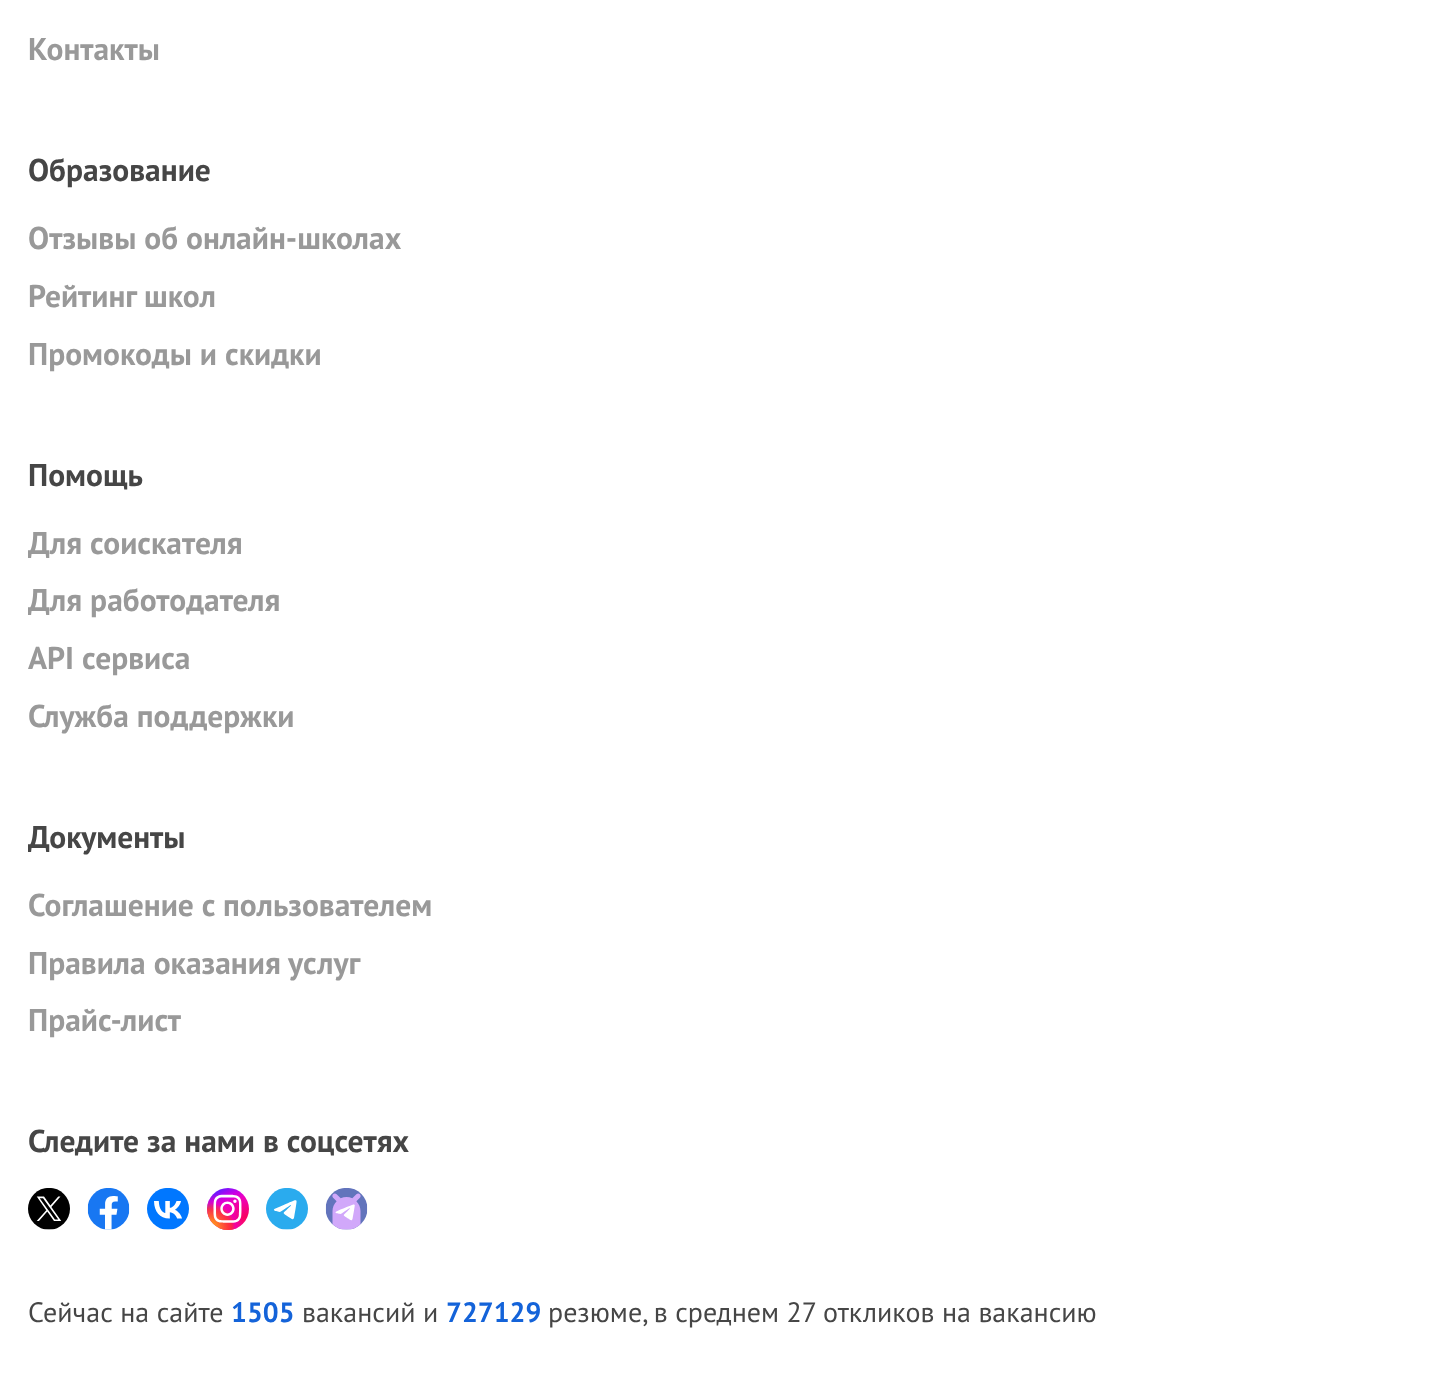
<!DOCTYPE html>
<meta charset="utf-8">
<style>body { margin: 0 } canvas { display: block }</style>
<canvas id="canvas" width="1456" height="1373"></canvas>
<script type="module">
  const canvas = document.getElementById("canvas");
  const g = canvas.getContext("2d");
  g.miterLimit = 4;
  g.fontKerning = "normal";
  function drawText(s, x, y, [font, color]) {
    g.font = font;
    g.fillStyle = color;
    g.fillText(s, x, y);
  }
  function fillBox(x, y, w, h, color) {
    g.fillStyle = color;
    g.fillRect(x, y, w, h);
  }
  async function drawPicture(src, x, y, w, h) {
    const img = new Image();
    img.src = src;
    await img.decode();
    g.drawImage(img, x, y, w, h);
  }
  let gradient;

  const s1 = ["bold 31.5px PT Sans", "#999999"];
  const s2 = ["bold 31.5px PT Sans", "#464646"];
  const s3 = ["28px PT Sans", "#464646"];
  const s4 = ["bold 28px PT Sans", "#1463D9"];

  fillBox(0, 0, 1456, 1373, "#FFFFFF");
  drawText("Контакты", 28, 60, s1);
  drawText("Образование", 28, 181, s2);
  drawText("Отзывы об онлайн-школах", 28, 249, s1);
  drawText("Рейтинг школ", 28, 307, s1);
  drawText("Промокоды и скидки", 28, 365, s1);
  drawText("Помощь", 28, 486, s2);
  drawText("Для соискателя", 28, 554, s1);
  drawText("Для работодателя", 28, 611, s1);
  drawText("API сервиса", 28, 669, s1);
  drawText("Служба поддержки", 28, 727, s1);
  drawText("Документы", 28, 848, s2);
  drawText("Соглашение с пользователем", 28, 916, s1);
  drawText("Правила оказания услуг", 28, 974, s1);
  drawText("Прайс-лист", 28, 1031, s1);
  drawText("Следите за нами в соцсетях", 28, 1152, s2);
  await drawPicture("pic1.png", 28, 1188, 42, 42);
  await drawPicture("pic2.png", 87, 1188, 43, 42);
  await drawPicture("pic3.png", 147, 1188, 42, 42);
  gradient = g.createRadialGradient(257, 1249, 0, 257, 1249, 78);
  gradient.addColorStop(0.24, "#FF1B90");
  gradient.addColorStop(0.44, "#F80261");
  gradient.addColorStop(0.69, "#ED00C0");
  gradient.addColorStop(0.78, "#C500E9");
  gradient.addColorStop(0.89, "#7017FF");
  g.fillStyle = gradient;
  g.beginPath();
  g.arc(228, 1209, 21, 0, Math.PI * 2);
  g.fill();
  gradient = g.createRadialGradient(209, 1229, 0, 209, 1229, 36);
  gradient.addColorStop(0, "#FFD600");
  gradient.addColorStop(0.32, "#FF6930");
  gradient.addColorStop(0.54, "rgba(254, 59, 54, 0.88)");
  gradient.addColorStop(0.62, "rgba(254, 59, 54, 0.63)");
  gradient.addColorStop(0.74, "rgba(237, 0, 192, 0.7)");
  gradient.addColorStop(1, "rgba(237, 0, 192, 0)");
  g.fillStyle = gradient;
  g.beginPath();
  g.arc(228, 1209, 21, 0, Math.PI * 2);
  g.fill();
  await drawPicture("pic4.png", 213, 1194, 29, 29);
  await drawPicture("pic5.png", 266, 1188, 42, 42);
  await drawPicture("pic6.png", 325, 1188, 43, 42);
  drawText("Сейчас на сайте", 28, 1322, s3);
  drawText("1505", 231, 1322, s4);
  drawText("вакансий и", 302, 1322, s3);
  drawText("727129", 446, 1322, s4);
  drawText("резюме, в среднем 27 откликов на вакансию", 548, 1322, s3);
</script>
